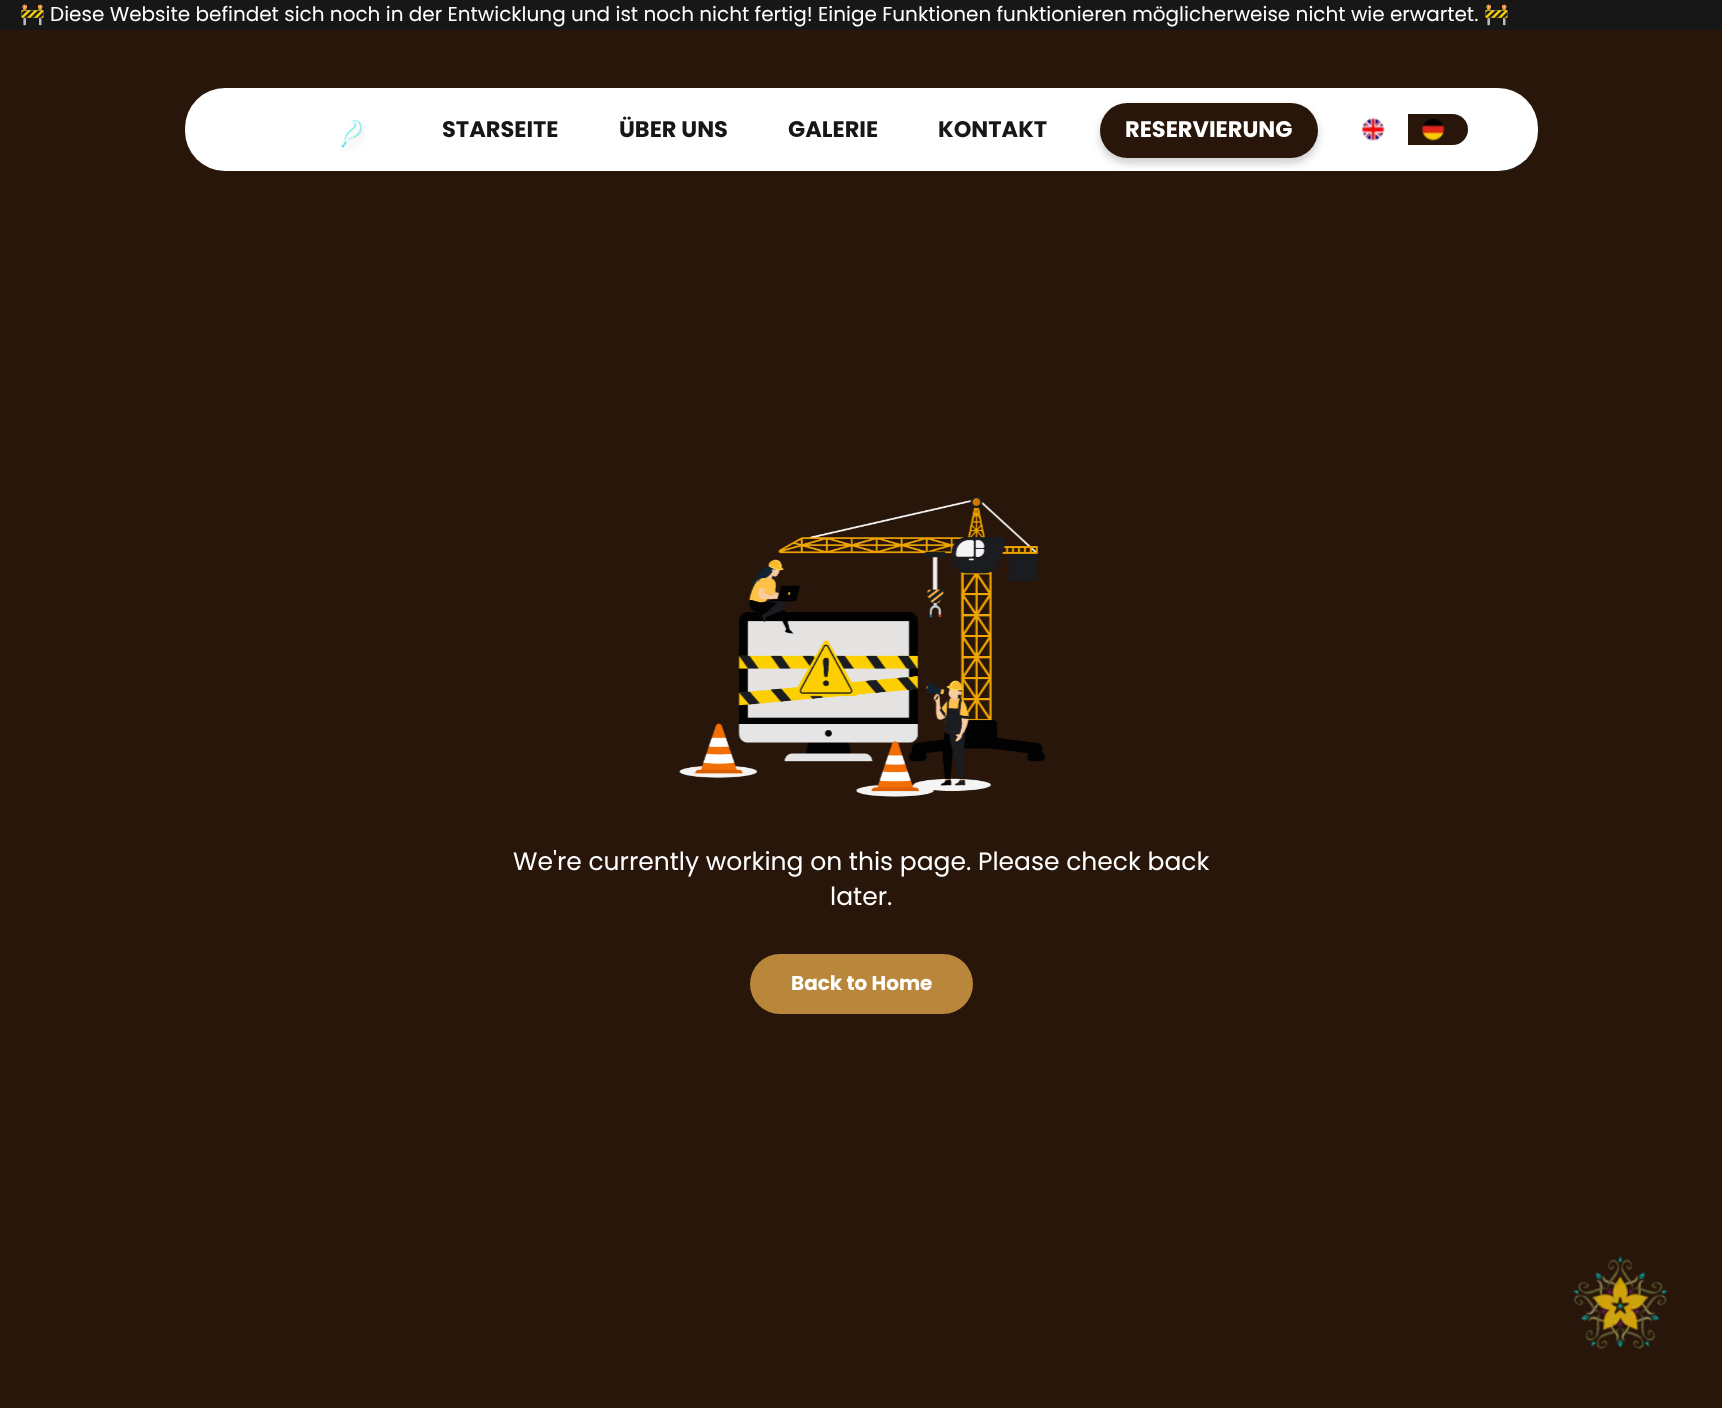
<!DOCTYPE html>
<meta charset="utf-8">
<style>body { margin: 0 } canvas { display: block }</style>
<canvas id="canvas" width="1722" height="1408"></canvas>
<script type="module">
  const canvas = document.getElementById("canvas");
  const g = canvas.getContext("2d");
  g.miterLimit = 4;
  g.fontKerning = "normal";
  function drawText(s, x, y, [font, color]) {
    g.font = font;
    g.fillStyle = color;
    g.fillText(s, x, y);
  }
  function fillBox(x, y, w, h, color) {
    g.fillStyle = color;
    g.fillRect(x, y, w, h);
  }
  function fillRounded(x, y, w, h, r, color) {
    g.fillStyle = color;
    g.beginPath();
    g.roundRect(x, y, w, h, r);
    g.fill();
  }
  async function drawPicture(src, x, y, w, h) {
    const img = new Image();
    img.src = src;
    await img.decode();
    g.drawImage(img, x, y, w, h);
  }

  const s1 = ["20px Noto Color Emoji", "#FFFFFF"];
  const s2 = ["20px Poppins", "#FFFFFF"];
  const s3 = ["bold 22.5px Poppins", "#171717"];
  const s4 = ["bold 22.5px Poppins", "#FFFFFF"];
  const s5 = ["25px Poppins", "#FFFFFF"];
  const s6 = ["bold 20px Poppins", "#FFFFFF"];

  fillBox(0, 0, 1722, 1408, "#28160A");
  fillBox(0, 0, 1722, 30, "#171717");
  drawText("🚧", 20, 21, s1);
  drawText("Diese Website befindet sich noch in der Entwicklung und ist noch nicht fertig! Einige Funktionen funktionieren möglicherweise nicht wie erwartet.", 50, 21, s2);
  drawText("🚧", 1484, 21, s1);
  fillRounded(185, 88, 1353, 83, 40, "#FFFFFF");
  await drawPicture("pic1.png", 341, 119, 24, 32);
  drawText("STARSEITE", 442, 137, s3);
  drawText("ÜBER UNS", 619, 137, s3);
  drawText("GALERIE", 788, 137, s3);
  drawText("KONTAKT", 938, 137, s3);
  g.fillStyle = "rgba(0, 0, 0, 0.2)";
  g.filter = "blur(4px)";
  g.beginPath();
  g.roundRect(1100, 108, 218, 55, 27.5);
  g.fill();
  g.filter = "none";
  fillRounded(1100, 103, 218, 55, 27.5, "#28160A");
  drawText("RESERVIERUNG", 1125, 137, s4);
  await drawPicture("pic2.png", 1362, 118, 23, 23);
  g.fillStyle = "#28160A";
  g.beginPath();
  g.roundRect(1408, 114, 60, 31, [0, 15.5, 15.5, 0]);
  g.fill();
  await drawPicture("pic3.png", 1422, 118, 23, 23);
  await drawPicture("pic4.png", 678, 496, 368, 301);
  drawText("We're currently working on this page. Please check back", 513, 870, s5);
  drawText("later.", 830, 905, s5);
  fillRounded(750, 954, 223, 60, 30, "#B9873B");
  drawText("Back to Home", 791, 990, s6);
  await drawPicture("pic5.png", 1573, 1256, 95, 94);
</script>
